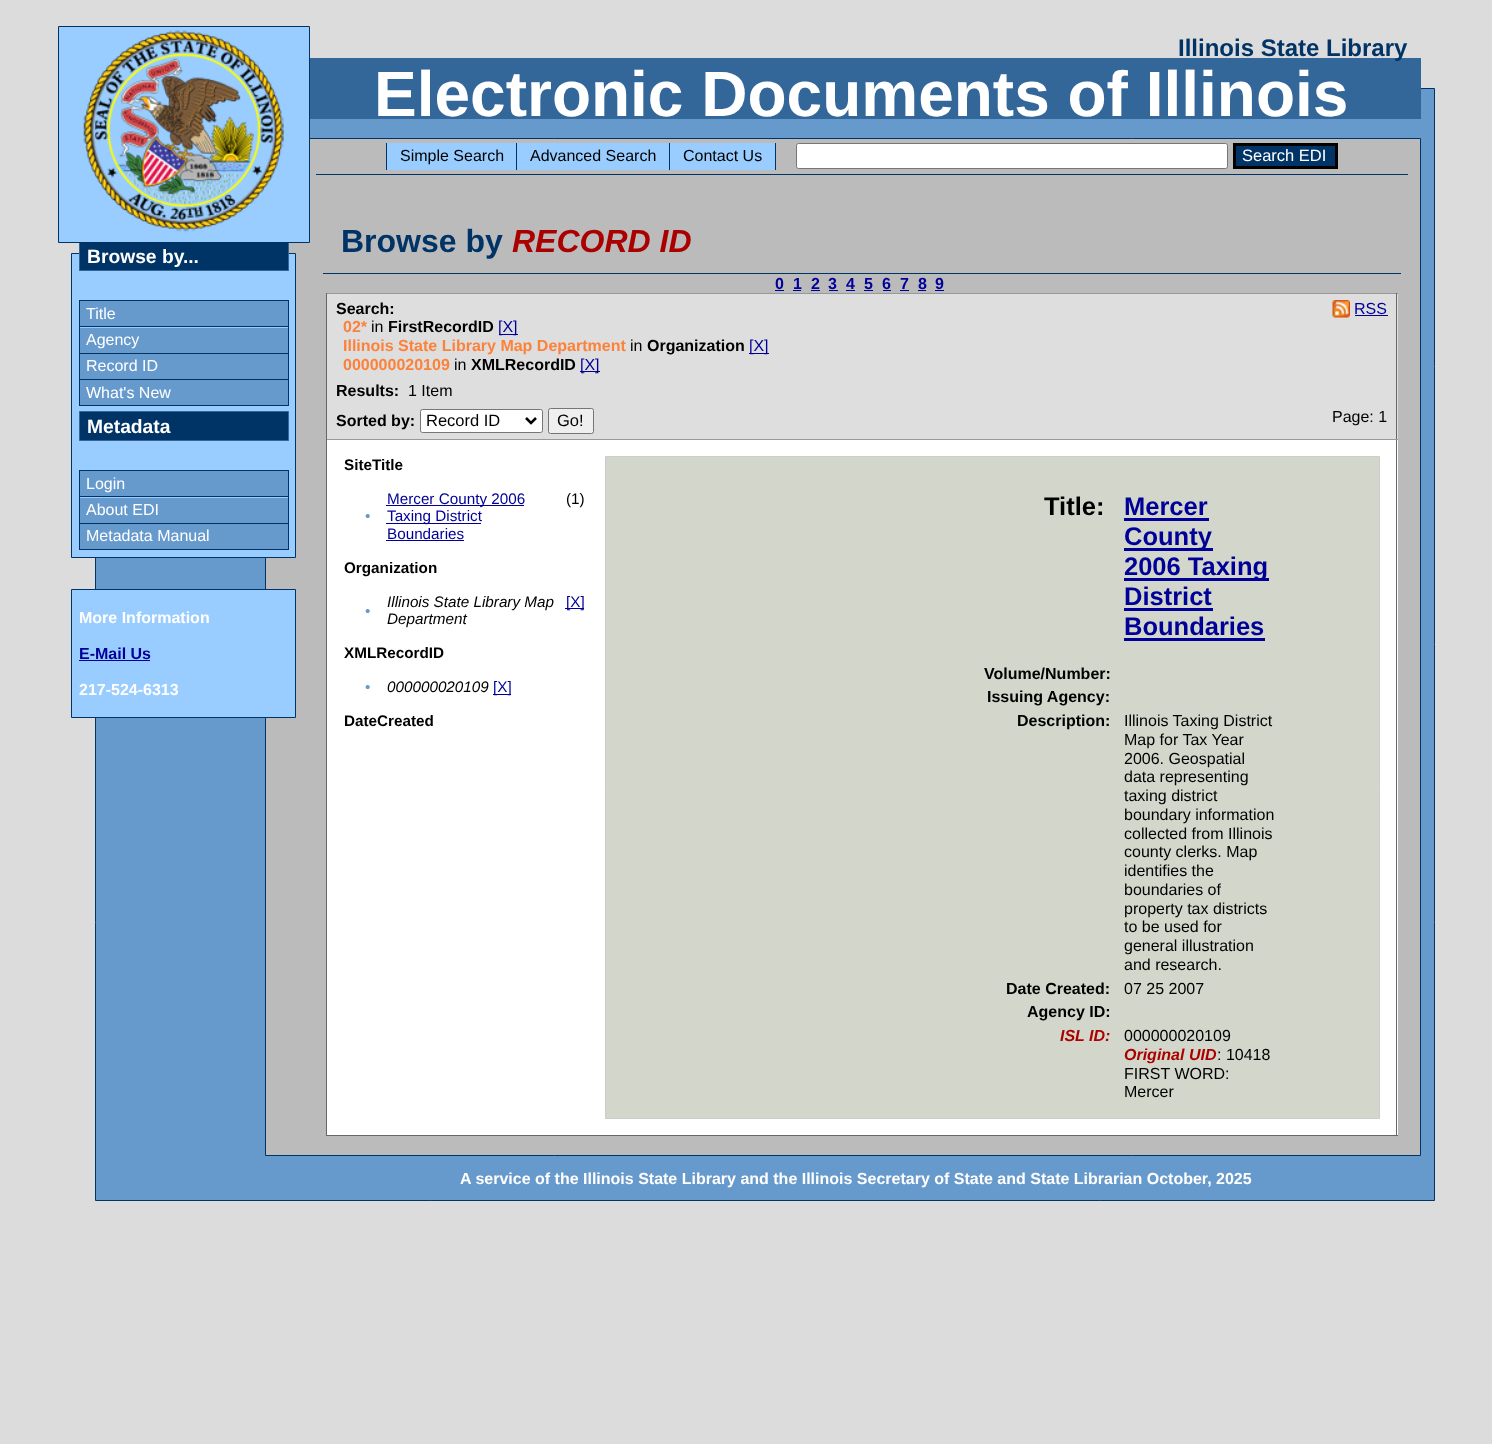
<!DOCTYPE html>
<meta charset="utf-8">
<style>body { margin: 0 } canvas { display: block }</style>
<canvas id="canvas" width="1492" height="1444"></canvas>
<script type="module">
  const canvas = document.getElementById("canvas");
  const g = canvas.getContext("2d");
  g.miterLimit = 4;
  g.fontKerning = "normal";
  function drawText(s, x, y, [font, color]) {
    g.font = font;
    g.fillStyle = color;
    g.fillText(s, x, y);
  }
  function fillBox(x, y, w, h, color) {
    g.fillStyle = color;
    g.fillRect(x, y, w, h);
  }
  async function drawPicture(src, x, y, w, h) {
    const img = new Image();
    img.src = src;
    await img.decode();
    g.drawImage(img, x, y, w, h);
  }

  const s1 = ["bold 19.25px Liberation Sans", "#FFFFFF"];
  const s2 = ["16px Liberation Sans", "#FFFFFF"];
  const s3 = ["bold 16px Liberation Sans", "#FFFFFF"];
  const s4 = ["bold 16px Liberation Sans", "#000099"];
  const s5 = ["bold 24px Liberation Sans", "#003366"];
  const s6 = ["bold 64px Liberation Sans", "#FFFFFF"];
  const s7 = ["16px Liberation Sans", "#000000"];
  const s8 = ["16.5px Liberation Sans", "#FFFFFF"];
  const s9 = ["bold 32px Liberation Sans", "#003366"];
  const s10 = ["italic bold 32px Liberation Sans", "#AA0000"];
  const s11 = ["bold 16px Liberation Sans", "#000000"];
  const s12 = ["bold 16px Liberation Sans", "#FD8239"];
  const s13 = ["16px Liberation Sans", "#000099"];
  const s14 = ["16.5px Liberation Sans", "#000000"];
  const s15 = ["bold 15.25px Liberation Sans", "#000000"];
  const s16 = ["15.25px Liberation Sans", "#000099"];
  const s17 = ["15.25px Liberation Sans", "#000000"];
  const s18 = ["15.25px Liberation Sans", "#6699CC"];
  const s19 = ["italic 15.25px Liberation Sans", "#000000"];
  const s20 = ["bold 25.5px Liberation Sans", "#000000"];
  const s21 = ["bold 25.5px Liberation Sans", "#000099"];
  const s22 = ["italic bold 16px Liberation Sans", "#AA0000"];

  fillBox(0, 0, 1492, 1444, "#DCDCDC");
  g.fillStyle = "#6699CC";
  g.beginPath();
  g.rect(95.5, 88.5, 1339, 1112);
  g.fill();
  g.strokeStyle = "#003366";
  g.stroke();
  g.fillStyle = "#BBBBBB";
  g.beginPath();
  g.rect(265.5, 138.5, 1155, 1017);
  g.fill();
  g.stroke();
  g.fillStyle = "#99CCFF";
  g.beginPath();
  g.rect(71.5, 253.5, 224, 304);
  g.fill();
  g.stroke();
  fillBox(80, 243, 208, 27, "#003366");
  g.strokeStyle = "#336699";
  g.strokeRect(79.5, 241.5, 209, 29);
  g.fillStyle = "#99CCFF";
  g.beginPath();
  g.rect(58.5, 26.5, 251, 216);
  g.fill();
  g.strokeStyle = "#003366";
  g.stroke();
  await drawPicture("pic1.png", 83, 30, 201, 202);
  drawText("Browse by...", 87, 263, s1);
  fillBox(79, 300, 210, 1, "#003366");
  fillBox(288, 300, 1, 106, "#003366");
  fillBox(79, 300, 1, 106, "#003366");
  fillBox(80, 326, 208, 1, "#003366");
  fillBox(80, 301, 208, 25, "#6699CC");
  drawText("Title", 86, 319, s2);
  fillBox(80, 353, 208, 1, "#003366");
  fillBox(80, 328, 208, 25, "#6699CC");
  drawText("Agency", 86, 345, s2);
  fillBox(80, 379, 208, 1, "#003366");
  fillBox(80, 354, 208, 25, "#6699CC");
  drawText("Record ID", 86, 371, s2);
  fillBox(80, 405, 208, 1, "#003366");
  fillBox(80, 380, 208, 25, "#6699CC");
  drawText("What's New", 86, 398, s2);
  g.fillStyle = "#003366";
  g.beginPath();
  g.rect(79.5, 411.5, 209, 29);
  g.fill();
  g.strokeStyle = "#336699";
  g.stroke();
  drawText("Metadata", 87, 433, s1);
  fillBox(79, 470, 210, 1, "#003366");
  fillBox(288, 470, 1, 80, "#003366");
  fillBox(79, 470, 1, 80, "#003366");
  fillBox(80, 496, 208, 1, "#003366");
  fillBox(80, 471, 208, 25, "#6699CC");
  drawText("Login", 86, 489, s2);
  fillBox(80, 523, 208, 1, "#003366");
  fillBox(80, 498, 208, 25, "#6699CC");
  drawText("About EDI", 86, 515, s2);
  fillBox(80, 549, 208, 1, "#003366");
  fillBox(80, 524, 208, 25, "#6699CC");
  drawText("Metadata Manual", 86, 541, s2);
  g.fillStyle = "#99CCFF";
  g.beginPath();
  g.rect(71.5, 589.5, 224, 128);
  g.fill();
  g.strokeStyle = "#003366";
  g.stroke();
  drawText("More Information", 79, 623, s3);
  drawText("E-Mail Us", 79, 659, s4);
  fillBox(79, 660, 71, 1, "#000099");
  drawText("217-524-6313", 79, 695, s3);
  fillBox(310, 58, 1111, 61, "#336699");
  drawText("Illinois State Library", 1178, 56, s5);
  drawText("Electronic Documents of Illinois", 374, 116, s6);
  fillBox(316, 174, 1092, 1, "#003366");
  fillBox(387, 143, 129, 27, "#99CCFF");
  drawText("Simple Search", 400, 161, s7);
  fillBox(386, 143, 1, 27, "#003366");
  fillBox(517, 143, 152, 27, "#99CCFF");
  drawText("Advanced Search", 530, 161, s7);
  fillBox(516, 143, 1, 27, "#003366");
  fillBox(670, 143, 105, 27, "#99CCFF");
  drawText("Contact Us", 683, 161, s7);
  fillBox(775, 143, 1, 27, "#003366");
  fillBox(669, 143, 1, 27, "#003366");
  g.fillStyle = "#FFFFFF";
  g.beginPath();
  g.roundRect(796.5, 143.5, 431, 25, 2);
  g.fill();
  g.strokeStyle = "#767676";
  g.stroke();
  g.fillStyle = "#003366";
  g.beginPath();
  g.rect(1234.5, 144.5, 102, 23);
  g.fill();
  g.strokeStyle = "#000000";
  g.lineWidth = 3;
  g.stroke();
  drawText("Search EDI", 1242, 161, s8);
  fillBox(323, 273, 1078, 1, "#003366");
  drawText("Browse by", 341, 252, s9);
  drawText("RECORD ID", 512, 252, s10);
  drawText("0", 775, 289, s4);
  fillBox(775, 290, 9, 1, "#000099");
  drawText("1", 793, 289, s4);
  fillBox(793, 290, 8, 1, "#000099");
  drawText("2", 811, 289, s4);
  fillBox(811, 290, 9, 1, "#000099");
  drawText("3", 828, 289, s4);
  fillBox(829, 290, 9, 1, "#000099");
  drawText("4", 846, 289, s4);
  fillBox(846, 290, 9, 1, "#000099");
  drawText("5", 864, 289, s4);
  fillBox(864, 290, 9, 1, "#000099");
  drawText("6", 882, 289, s4);
  fillBox(883, 290, 8, 1, "#000099");
  drawText("7", 900, 289, s4);
  fillBox(900, 290, 9, 1, "#000099");
  drawText("8", 918, 289, s4);
  fillBox(918, 290, 8, 1, "#000099");
  drawText("9", 935, 289, s4);
  fillBox(935, 290, 9, 1, "#000099");
  fillBox(327, 294, 1071, 145, "#DEDEDF");
  fillBox(326, 293, 1072, 1, "#999999");
  fillBox(1396, 293, 1, 147, "#666666");
  fillBox(326, 439, 1072, 1, "#999999");
  fillBox(326, 293, 1, 147, "#666666");
  drawText("Search:", 336, 314, s11);
  drawText("02*", 343, 332, s12);
  drawText("in", 371, 332, s7);
  drawText("FirstRecordID", 388, 332, s11);
  fillBox(499, 334, 19, 1, "#000099");
  drawText("[X]", 498, 332, s13);
  drawText("Illinois State Library Map Department", 343, 351, s12);
  drawText("in", 630, 351, s7);
  drawText("Organization", 647, 351, s11);
  fillBox(749, 353, 20, 1, "#000099");
  drawText("[X]", 749, 351, s13);
  drawText("000000020109", 343, 370, s12);
  drawText("in", 454, 370, s7);
  drawText("XMLRecordID", 471, 370, s11);
  fillBox(580, 371, 20, 1, "#000099");
  drawText("[X]", 580, 370, s13);
  await drawPicture("pic2.png", 1332, 300, 18, 18);
  drawText("RSS", 1354, 314, s13);
  fillBox(1355, 315, 33, 1, "#000099");
  drawText("Results:", 336, 396, s11);
  drawText("1 Item", 408, 396, s7);
  drawText("Sorted by:", 336, 426, s11);
  g.fillStyle = "#FFFFFF";
  g.beginPath();
  g.roundRect(420.5, 409.5, 122, 23, 2);
  g.fill();
  g.strokeStyle = "#767676";
  g.lineWidth = 1;
  g.stroke();
  g.beginPath();
  g.moveTo(526, 418);
  g.lineTo(531, 423);
  g.lineTo(536, 418);
  g.strokeStyle = "#000000";
  g.lineWidth = 2.5;
  g.stroke();
  drawText("Record ID", 426, 426, s14);
  g.fillStyle = "#EFEFEF";
  g.beginPath();
  g.roundRect(548.5, 408.5, 45, 25, 2);
  g.fill();
  g.strokeStyle = "#767676";
  g.lineWidth = 1;
  g.stroke();
  drawText("Go!", 557, 426, s14);
  drawText("Page: 1", 1332, 422, s7);
  fillBox(327, 440, 1071, 695, "#FFFFFF");
  fillBox(1396, 440, 1, 696, "#666666");
  fillBox(326, 1135, 1072, 1, "#666666");
  fillBox(326, 440, 1, 696, "#666666");
  drawText("SiteTitle", 344, 470, s15);
  fillBox(386, 505, 138, 1, "#000099");
  drawText("Mercer County 2006", 387, 504, s16);
  fillBox(386, 523, 95, 1, "#000099");
  drawText("Taxing District", 387, 521, s16);
  drawText("Boundaries", 387, 539, s16);
  fillBox(386, 540, 78, 1, "#000099");
  drawText("(1)", 566, 504, s17);
  drawText("•", 365, 521, s18);
  drawText("Organization", 344, 573, s15);
  drawText("•", 365, 616, s18);
  drawText("Illinois State Library Map", 387, 607, s19);
  drawText("Department", 387, 624, s19);
  fillBox(565, 608, 19, 1, "#000099");
  drawText("[X]", 566, 607, s16);
  drawText("XMLRecordID", 344, 658, s15);
  drawText("•", 365, 692, s18);
  drawText("000000020109", 387, 692, s19);
  fillBox(493, 694, 18, 1, "#000099");
  drawText("[X]", 493, 692, s16);
  drawText("DateCreated", 344, 726, s15);
  g.fillStyle = "#D3D7CB";
  g.beginPath();
  g.rect(605.5, 456.5, 774, 662);
  g.fill();
  g.strokeStyle = "#CCCCCC";
  g.stroke();
  drawText("Title:", 1044, 515, s20);
  drawText("Mercer", 1124, 515, s21);
  fillBox(1124, 518, 85, 3, "#000099");
  fillBox(1124, 548, 89, 3, "#000099");
  drawText("County", 1124, 545, s21);
  fillBox(1124, 578, 145, 3, "#000099");
  drawText("2006 Taxing", 1124, 575, s21);
  drawText("District", 1124, 605, s21);
  fillBox(1124, 608, 89, 3, "#000099");
  drawText("Boundaries", 1124, 635, s21);
  fillBox(1124, 638, 141, 3, "#000099");
  drawText("Volume/Number:", 984, 679, s11);
  drawText("Issuing Agency:", 987, 702, s11);
  drawText("Description:", 1017, 726, s11);
  drawText("Illinois Taxing District", 1124, 726, s7);
  drawText("Map for Tax Year", 1124, 745, s7);
  drawText("2006. Geospatial", 1124, 764, s7);
  drawText("data representing", 1124, 782, s7);
  drawText("taxing district", 1124, 801, s7);
  drawText("boundary information", 1124, 820, s7);
  drawText("collected from Illinois", 1124, 839, s7);
  drawText("county clerks. Map", 1124, 857, s7);
  drawText("identifies the", 1124, 876, s7);
  drawText("boundaries of", 1124, 895, s7);
  drawText("property tax districts", 1124, 914, s7);
  drawText("to be used for", 1124, 932, s7);
  drawText("general illustration", 1124, 951, s7);
  drawText("and research.", 1124, 970, s7);
  drawText("Date Created:", 1006, 994, s11);
  drawText("07 25 2007", 1124, 994, s7);
  drawText("Agency ID:", 1027, 1017, s11);
  drawText("ISL ID:", 1060, 1041, s22);
  drawText("000000020109", 1124, 1041, s7);
  drawText("Original UID", 1124, 1060, s22);
  drawText(": 10418", 1217, 1060, s7);
  drawText("FIRST WORD:", 1124, 1079, s7);
  drawText("Mercer", 1124, 1097, s7);
  drawText("A service of the Illinois State Library and the Illinois Secretary of State and State Librarian October, 2025", 460, 1184, s3);
</script>
